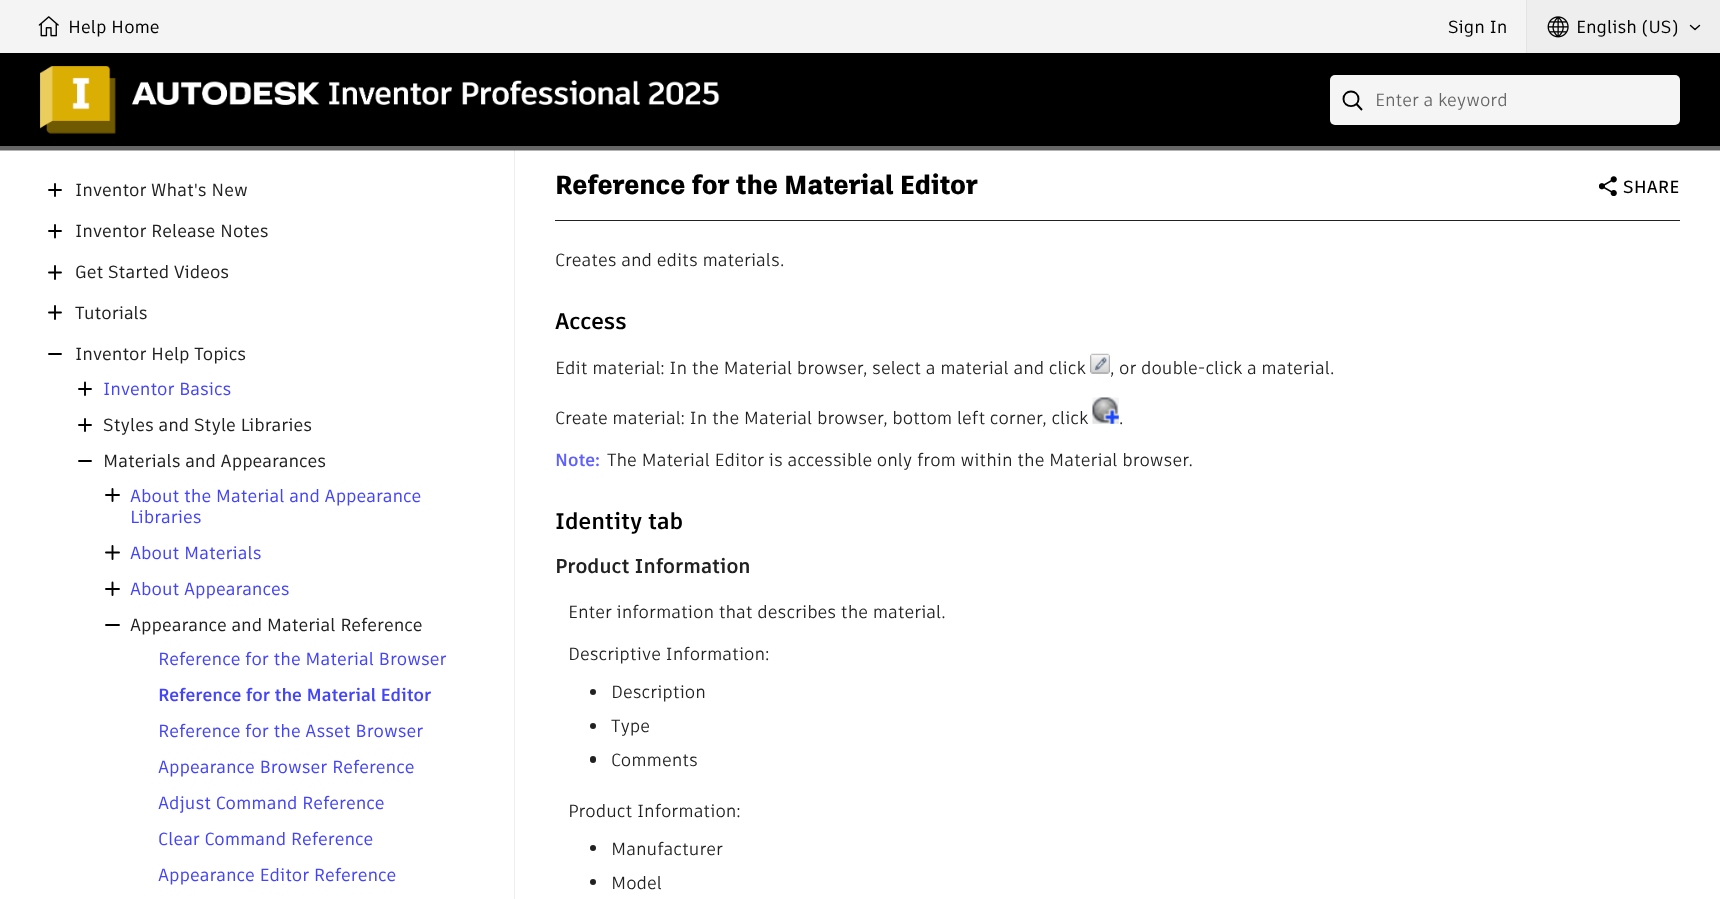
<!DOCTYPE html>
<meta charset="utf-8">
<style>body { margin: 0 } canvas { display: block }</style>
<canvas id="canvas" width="1720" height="899"></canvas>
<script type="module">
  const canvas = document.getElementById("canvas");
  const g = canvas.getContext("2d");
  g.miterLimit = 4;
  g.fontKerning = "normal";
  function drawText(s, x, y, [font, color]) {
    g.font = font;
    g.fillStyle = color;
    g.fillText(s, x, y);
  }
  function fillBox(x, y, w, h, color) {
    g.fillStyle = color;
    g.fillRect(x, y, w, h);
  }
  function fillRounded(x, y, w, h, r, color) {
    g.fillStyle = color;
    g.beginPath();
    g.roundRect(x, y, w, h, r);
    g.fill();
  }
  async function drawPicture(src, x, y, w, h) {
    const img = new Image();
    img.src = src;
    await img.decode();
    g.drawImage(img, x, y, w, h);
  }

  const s1 = ["500 17.5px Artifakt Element", "#000000"];
  const s2 = ["17.5px Artifakt Element", "#666666"];
  const s3 = ["500 17.5px Artifakt Element", "#212121"];
  const s4 = ["500 17.5px Artifakt Element", "#4444F8"];
  const s5 = ["bold 17.5px Artifakt Element", "#4444F8"];
  const s6 = ["800 26.25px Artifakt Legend", "#000000"];
  const s7 = ["17.5px Artifakt Element", "#212121"];
  const s8 = ["bold 22.5px Artifakt Element", "#000000"];
  const s9 = ["bold 17.5px Artifakt Element", "#5F60FF"];
  const s10 = ["bold 20px Artifakt Element", "#212121"];
  const s11 = ["600 17.5px Artifakt Element", "#000000"];

  fillBox(0, 0, 1720, 899, "#FFFFFF");
  fillBox(514, 150, 1, 749, "#EEEEEE");
  g.fillStyle = "rgba(0, 0, 0, 0.3)";
  g.filter = "blur(0.5px)";
  g.beginPath();
  g.rect(0, 54, 1720, 97);
  g.fill();
  g.filter = "none";
  fillBox(0, 0, 1526, 53, "#F4F4F4");
  await drawPicture("pic1.png", 38, 16, 21, 21);
  drawText("Help Home", 68, 33, s1);
  drawText("Sign In", 1448, 33, s1);
  fillBox(1527, 0, 193, 53, "#EEEEEE");
  fillBox(1526, 0, 1, 53, "#E4E4E4");
  await drawPicture("pic2.png", 1547, 16, 22, 22);
  drawText("English (US)", 1576, 33, s1);
  g.beginPath();
  g.moveTo(1699.5, 25.5);
  g.lineTo(1695, 29.5);
  g.lineTo(1690.5, 25.5);
  g.strokeStyle = "#000000";
  g.lineWidth = 1.4;
  g.lineCap = "round";
  g.lineJoin = "round";
  g.stroke();
  fillBox(0, 53, 1720, 93, "#000000");
  fillBox(0, 146, 1720, 4, "#666666");
  await drawPicture("pic3.png", 40, 66, 680, 68);
  fillRounded(1330, 75, 350, 50, 5, "#F5F5F5");
  g.beginPath();
  g.moveTo(1356.5, 104);
  g.lineTo(1362, 110);
  g.moveTo(1358.5, 99);
  g.bezierCurveTo(1358.5, 108.5, 1343.5, 108.5, 1343.5, 99);
  g.bezierCurveTo(1343.5, 89, 1358.5, 89, 1358.5, 99);
  g.closePath();
  g.lineWidth = 1.9;
  g.lineCap = "butt";
  g.lineJoin = "miter";
  g.stroke();
  drawText("Enter a keyword", 1375, 106, s2);
  g.beginPath();
  g.moveTo(55, 184);
  g.lineTo(55, 196);
  g.moveTo(49, 190);
  g.lineTo(61, 190);
  g.lineCap = "round";
  g.stroke();
  drawText("Inventor What's New", 75, 196, s3);
  g.beginPath();
  g.moveTo(55, 225);
  g.lineTo(55, 237.5);
  g.moveTo(49, 231);
  g.lineTo(61, 231);
  g.stroke();
  drawText("Inventor Release Notes", 75, 237, s3);
  g.beginPath();
  g.moveTo(55, 266);
  g.lineTo(55, 279);
  g.moveTo(49, 272.5);
  g.lineTo(61, 272.5);
  g.stroke();
  drawText("Get Started Videos", 75, 278, s3);
  g.beginPath();
  g.moveTo(55, 306);
  g.lineTo(55, 319);
  g.moveTo(49, 312.5);
  g.lineTo(61, 312.5);
  g.stroke();
  drawText("Tutorials", 75, 319, s3);
  g.beginPath();
  g.moveTo(49, 354);
  g.lineTo(61, 354);
  g.stroke();
  drawText("Inventor Help Topics", 75, 360, s3);
  g.beginPath();
  g.moveTo(85, 382.5);
  g.lineTo(85, 395);
  g.moveTo(79, 389);
  g.lineTo(91, 389);
  g.stroke();
  drawText("Inventor Basics", 103, 395, s4);
  g.beginPath();
  g.moveTo(85, 419);
  g.lineTo(85, 431);
  g.moveTo(79, 425);
  g.lineTo(91, 425);
  g.stroke();
  drawText("Styles and Style Libraries", 103, 431, s3);
  g.beginPath();
  g.moveTo(79, 461);
  g.lineTo(91, 461);
  g.stroke();
  drawText("Materials and Appearances", 103, 467, s3);
  g.beginPath();
  g.moveTo(112.5, 489);
  g.lineTo(112.5, 501);
  g.moveTo(106, 495);
  g.lineTo(119, 495);
  g.stroke();
  drawText("About the Material and Appearance", 130, 502, s4);
  drawText("Libraries", 130, 523, s4);
  g.beginPath();
  g.moveTo(112.5, 546);
  g.lineTo(112.5, 559);
  g.moveTo(106, 552.5);
  g.lineTo(119, 552.5);
  g.stroke();
  drawText("About Materials", 130, 559, s4);
  g.beginPath();
  g.moveTo(112.5, 582.5);
  g.lineTo(112.5, 595);
  g.moveTo(106, 589);
  g.lineTo(119, 589);
  g.stroke();
  drawText("About Appearances", 130, 595, s4);
  g.beginPath();
  g.moveTo(106, 625);
  g.lineTo(119, 625);
  g.stroke();
  drawText("Appearance and Material Reference", 130, 631, s3);
  drawText("Reference for the Material Browser", 158, 665, s4);
  drawText("Reference for the Material Editor", 158, 701, s5);
  drawText("Reference for the Asset Browser", 158, 737, s4);
  drawText("Appearance Browser Reference", 158, 773, s4);
  drawText("Adjust Command Reference", 158, 809, s4);
  drawText("Clear Command Reference", 158, 845, s4);
  drawText("Appearance Editor Reference", 158, 881, s4);
  fillBox(555, 220, 1125, 1, "#212121");
  drawText("Reference for the Material Editor", 555, 194, s6);
  drawText("Creates and edits materials.", 555, 266, s7);
  drawText("Access", 555, 329, s8);
  drawText("Edit material: In the Material browser, select a material and click", 555, 374, s7);
  await drawPicture("pic4.png", 1090, 353, 20, 21);
  drawText(", or double-click a material.", 1110, 374, s7);
  drawText("Create material: In the Material browser, bottom left corner, click", 555, 424, s7);
  await drawPicture("pic5.png", 1092, 397, 27, 27);
  drawText(".", 1119, 424, s7);
  drawText("Note:", 555, 466, s9);
  drawText("The Material Editor is accessible only from within the Material browser.", 607, 466, s7);
  drawText("Identity tab", 555, 529, s8);
  drawText("Product Information", 555, 573, s10);
  drawText("Enter information that describes the material.", 568, 618, s7);
  drawText("Descriptive Information:", 568, 660, s7);
  g.beginPath();
  g.arc(593, 692, 3, 0, Math.PI * 2);
  g.fill();
  drawText("Description", 611, 698, s7);
  g.beginPath();
  g.arc(593, 726, 3, 0, Math.PI * 2);
  g.fill();
  drawText("Type", 611, 732, s7);
  fillRounded(590, 756, 6, 7, 3, "#212121");
  drawText("Comments", 611, 766, s7);
  drawText("Product Information:", 568, 817, s7);
  g.beginPath();
  g.arc(593, 848, 3, 0, Math.PI * 2);
  g.fill();
  drawText("Manufacturer", 611, 855, s7);
  g.beginPath();
  g.arc(593, 882, 3, 0, Math.PI * 2);
  g.fill();
  drawText("Model", 611, 889, s7);
  await drawPicture("pic6.png", 1599, 176, 18, 20);
  drawText("SHARE", 1623, 193, s11);
</script>
